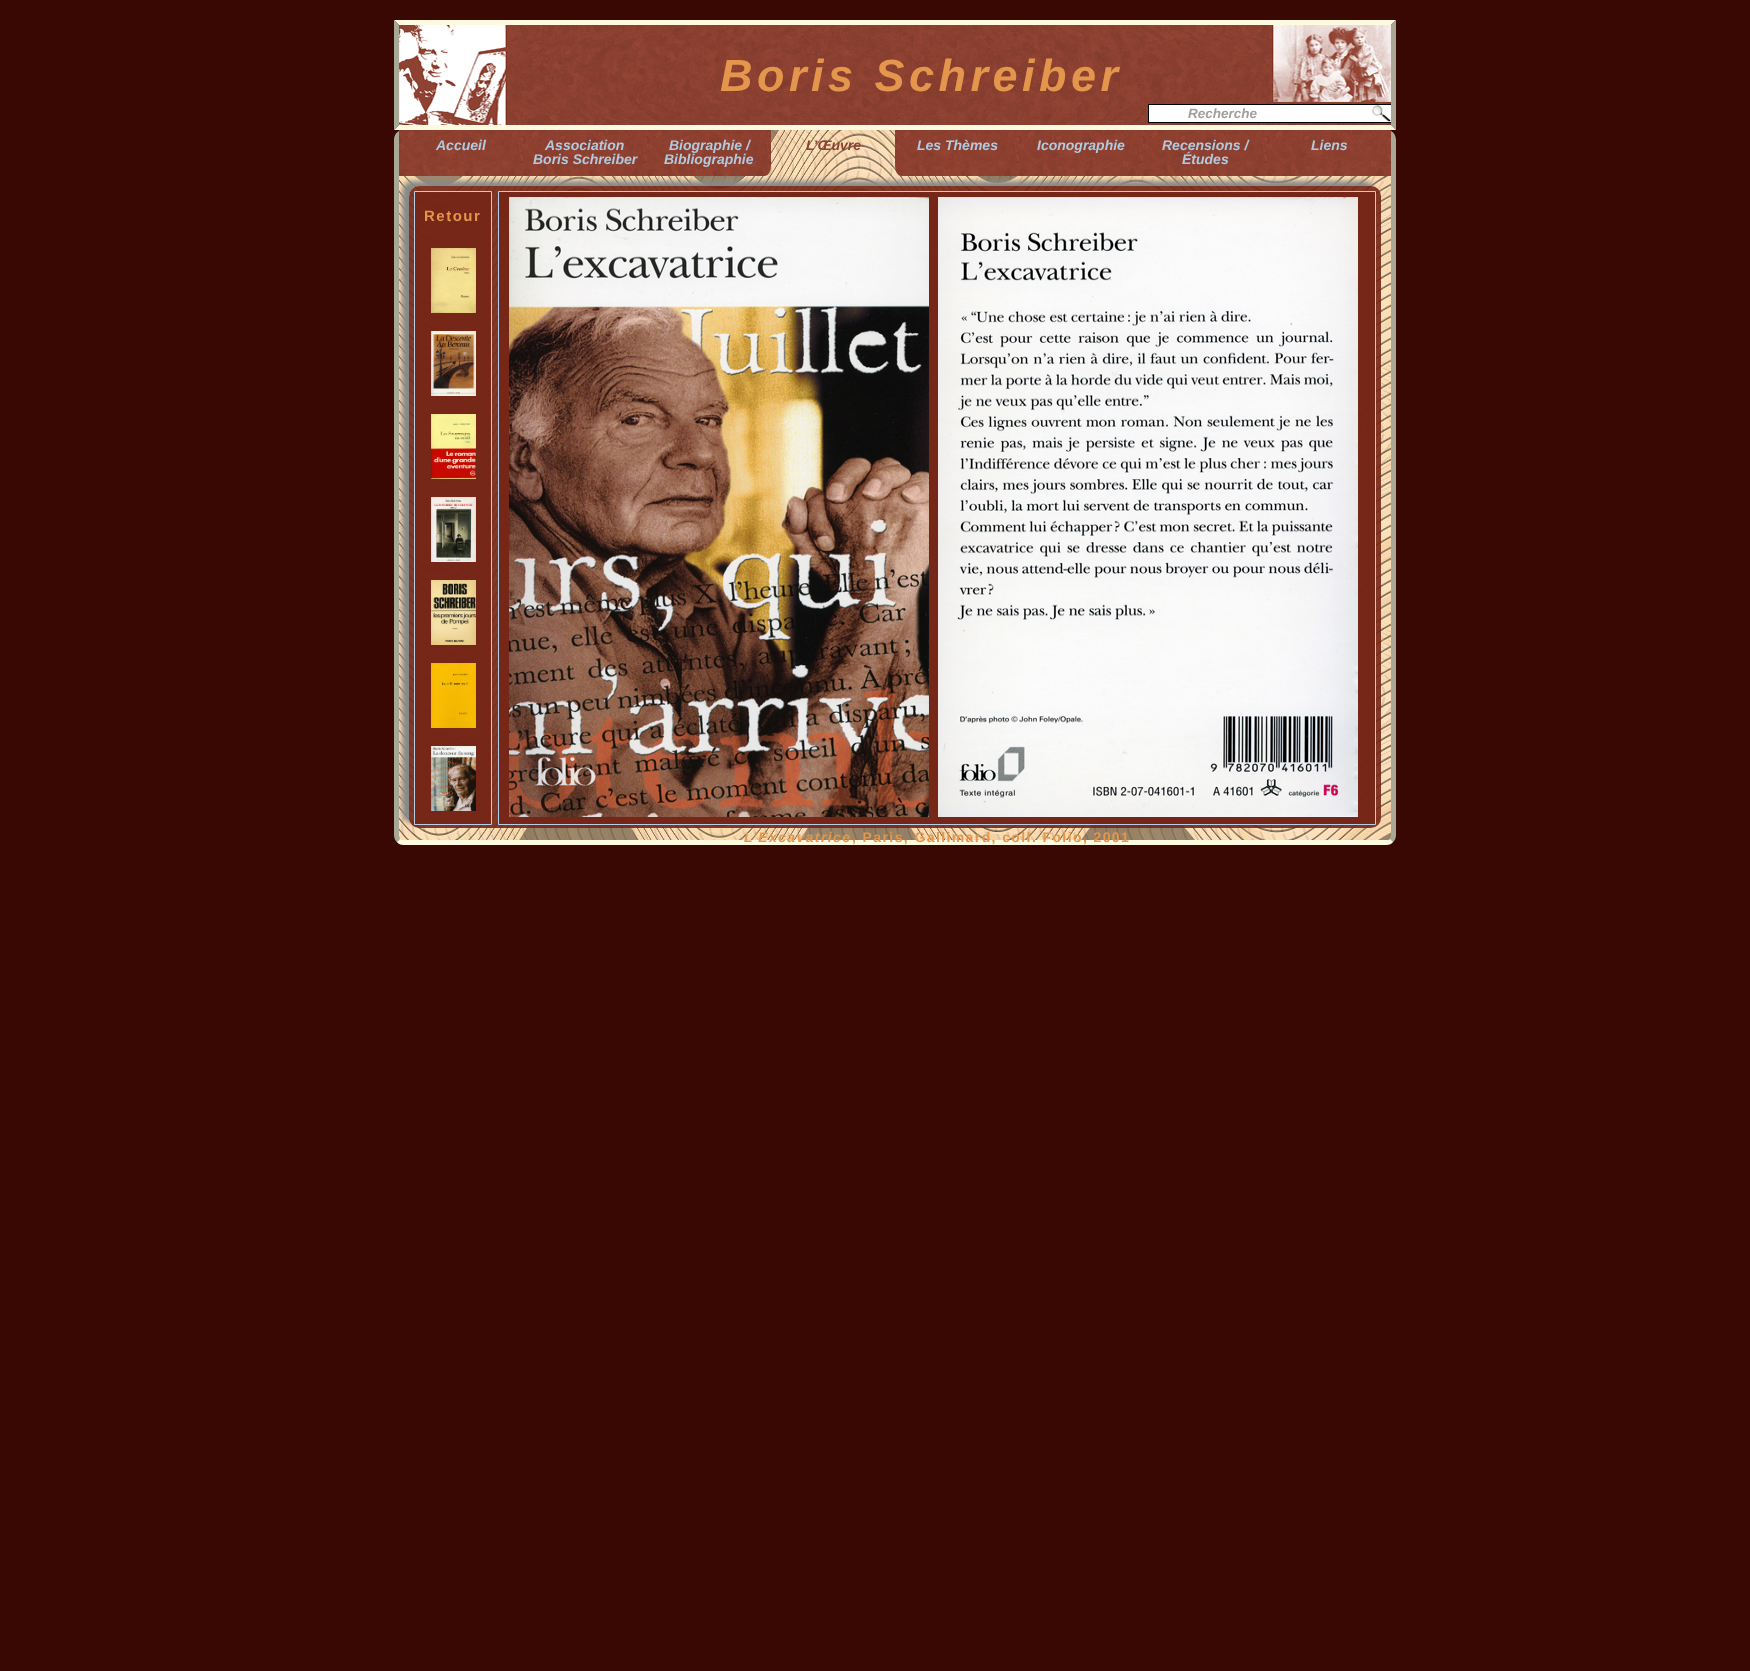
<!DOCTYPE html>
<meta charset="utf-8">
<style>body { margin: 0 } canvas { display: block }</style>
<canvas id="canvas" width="1750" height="1671"></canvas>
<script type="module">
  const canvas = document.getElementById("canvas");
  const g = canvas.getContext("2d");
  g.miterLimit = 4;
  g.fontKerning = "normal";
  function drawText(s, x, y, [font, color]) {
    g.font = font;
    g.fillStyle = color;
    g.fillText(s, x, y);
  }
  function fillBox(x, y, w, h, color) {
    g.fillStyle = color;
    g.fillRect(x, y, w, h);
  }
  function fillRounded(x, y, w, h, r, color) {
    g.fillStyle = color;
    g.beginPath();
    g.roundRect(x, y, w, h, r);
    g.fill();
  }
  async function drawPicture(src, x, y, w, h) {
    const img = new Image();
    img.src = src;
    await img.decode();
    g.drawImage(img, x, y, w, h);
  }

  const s1 = ["italic bold 45px Liberation Sans", "#E4964C"];
  const s2 = ["italic bold 13.5px Liberation Sans", "#9FA199"];
  const s3 = ["italic bold 14px Liberation Sans", "#B0CAE0"];
  const s4 = ["italic bold 14px Liberation Sans", "#8E4232"];
  const s5 = ["bold 15px Liberation Sans", "#E4964C"];
  const s6 = ["italic bold 14px Liberation Sans", "#E4964C"];
  const s7 = ["bold 14px Liberation Sans", "#E4964C"];

  fillBox(0, 0, 1750, 1671, "#3A0803");
  await drawPicture("pic1.png", 399, 25, 992, 100);
  g.fillStyle = "#FEFADF";
  g.beginPath();
  g.moveTo(394, 20);
  g.lineTo(1396, 20);
  g.lineTo(1391, 25);
  g.lineTo(399, 25);
  g.closePath();
  g.fill();
  g.fillStyle = "#A9A795";
  g.beginPath();
  g.moveTo(1396, 20);
  g.lineTo(1396, 130);
  g.lineTo(1391, 125);
  g.lineTo(1391, 25);
  g.closePath();
  g.fill();
  g.fillStyle = "#FEFADF";
  g.beginPath();
  g.moveTo(1396, 130);
  g.lineTo(394, 130);
  g.lineTo(399, 125);
  g.lineTo(1391, 125);
  g.closePath();
  g.fill();
  g.fillStyle = "#A9A795";
  g.beginPath();
  g.moveTo(394, 130);
  g.lineTo(394, 20);
  g.lineTo(399, 25);
  g.lineTo(399, 125);
  g.closePath();
  g.fill();
  await drawPicture("pic2.png", 395, 130, 1000, 715);
  g.beginPath();
  g.moveTo(1396, 140);
  g.bezierCurveTo(1396, 134, 1392, 130, 1386, 130);
  g.bezierCurveTo(1389, 130, 1391, 134, 1391, 140);
  g.lineTo(1391, 835);
  g.bezierCurveTo(1391, 836, 1390, 838, 1390, 839);
  g.lineTo(1393, 842);
  g.bezierCurveTo(1395, 840, 1396, 838, 1396, 835);
  g.closePath();
  g.fill();
  g.fillStyle = "#FEFADF";
  g.beginPath();
  g.moveTo(400, 839);
  g.bezierCurveTo(401, 840, 402, 840, 404, 840);
  g.lineTo(1386, 840);
  g.bezierCurveTo(1388, 840, 1389, 840, 1390, 839);
  g.lineTo(1393, 842);
  g.bezierCurveTo(1392, 844, 1389, 845, 1386, 845);
  g.lineTo(404, 845);
  g.bezierCurveTo(401, 845, 398, 844, 397, 842);
  g.closePath();
  g.fill();
  g.fillStyle = "#A9A795";
  g.beginPath();
  g.moveTo(404, 130);
  g.bezierCurveTo(398, 130, 394, 134, 394, 140);
  g.lineTo(394, 835);
  g.bezierCurveTo(394, 838, 395, 840, 397, 842);
  g.lineTo(400, 839);
  g.bezierCurveTo(400, 838, 399, 836, 399, 835);
  g.lineTo(399, 140);
  g.bezierCurveTo(399, 134, 401, 130, 404, 130);
  g.closePath();
  g.fill();
  g.letterSpacing = "4.5px";
  drawText("Boris Schreiber", 720, 91, s1);
  fillBox(1149, 105, 223, 17, "#FFFFFF");
  fillBox(1148, 104, 243, 1, "#000000");
  fillBox(1148, 122, 243, 1, "#000000");
  fillBox(1148, 104, 1, 19, "#000000");
  g.letterSpacing = "0px";
  drawText("Recherche", 1188, 118, s2);
  await drawPicture("pic3.png", 1372, 105, 19, 17);
  await drawPicture("pic4.png", 399, 130, 124, 46);
  drawText("Accueil", 436, 150, s3);
  await drawPicture("pic4.png", 523, 130, 124, 46);
  drawText("Association", 545, 150, s3);
  drawText("Boris Schreiber", 533, 164, s3);
  await drawPicture("pic5.png", 647, 130, 124, 46);
  drawText("Biographie /", 669, 150, s3);
  drawText("Bibliographie", 664, 164, s3);
  drawText("L’Œuvre", 806, 150, s4);
  await drawPicture("pic6.png", 895, 130, 124, 46);
  drawText("Les Thèmes", 917, 150, s3);
  await drawPicture("pic4.png", 1019, 130, 124, 46);
  drawText("Iconographie", 1037, 150, s3);
  await drawPicture("pic4.png", 1143, 130, 124, 46);
  drawText("Recensions /", 1162, 150, s3);
  drawText("Études", 1182, 164, s3);
  await drawPicture("pic4.png", 1267, 130, 124, 46);
  drawText("Liens", 1311, 150, s3);
  g.save();
  g.beginPath();
  g.moveTo(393, 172);
  g.lineTo(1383, 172);
  g.lineTo(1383, 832);
  g.lineTo(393, 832);
  g.closePath();
  g.moveTo(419, 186);
  g.lineTo(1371, 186);
  g.bezierCurveTo(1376.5, 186, 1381, 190.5, 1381, 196);
  g.lineTo(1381, 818);
  g.bezierCurveTo(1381, 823.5, 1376.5, 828, 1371, 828);
  g.lineTo(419, 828);
  g.bezierCurveTo(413.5, 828, 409, 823.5, 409, 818);
  g.lineTo(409, 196);
  g.bezierCurveTo(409, 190.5, 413.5, 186, 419, 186);
  g.closePath();
  g.clip("evenodd");
  g.fillStyle = "#888888";
  g.filter = "blur(2.5px)";
  g.beginPath();
  g.roundRect(402, 181, 972, 642, 10);
  g.fill();
  g.filter = "none";
  g.restore();
  fillRounded(409, 186, 972, 642, 10, "rgba(116, 38, 22, 0.9)");
  g.beginPath();
  g.rect(414.5, 191.5, 77, 633);
  g.fill();
  g.strokeStyle = "#B3CFEC";
  g.stroke();
  g.letterSpacing = "1.5px";
  drawText("Retour", 424, 221, s5);
  await drawPicture("pic7.png", 431, 248, 45, 65);
  await drawPicture("pic8.png", 431, 331, 45, 65);
  await drawPicture("pic9.png", 431, 414, 45, 65);
  await drawPicture("pic10.png", 431, 497, 45, 65);
  await drawPicture("pic11.png", 431, 580, 45, 65);
  await drawPicture("pic12.png", 431, 663, 45, 65);
  await drawPicture("pic13.png", 431, 746, 45, 65);
  g.fillStyle = "rgba(116, 38, 22, 0.9)";
  g.beginPath();
  g.rect(498.5, 191.5, 877, 633);
  g.fill();
  g.stroke();
  await drawPicture("pic14.png", 509, 197, 420, 620);
  await drawPicture("pic15.png", 938, 197, 420, 620);
  g.letterSpacing = "1.4px";
  drawText("L’Excavatrice", 744, 842, s6);
  drawText(", Paris, Gallimard, coll. Folio, 2001", 852, 842, s7);
</script>
